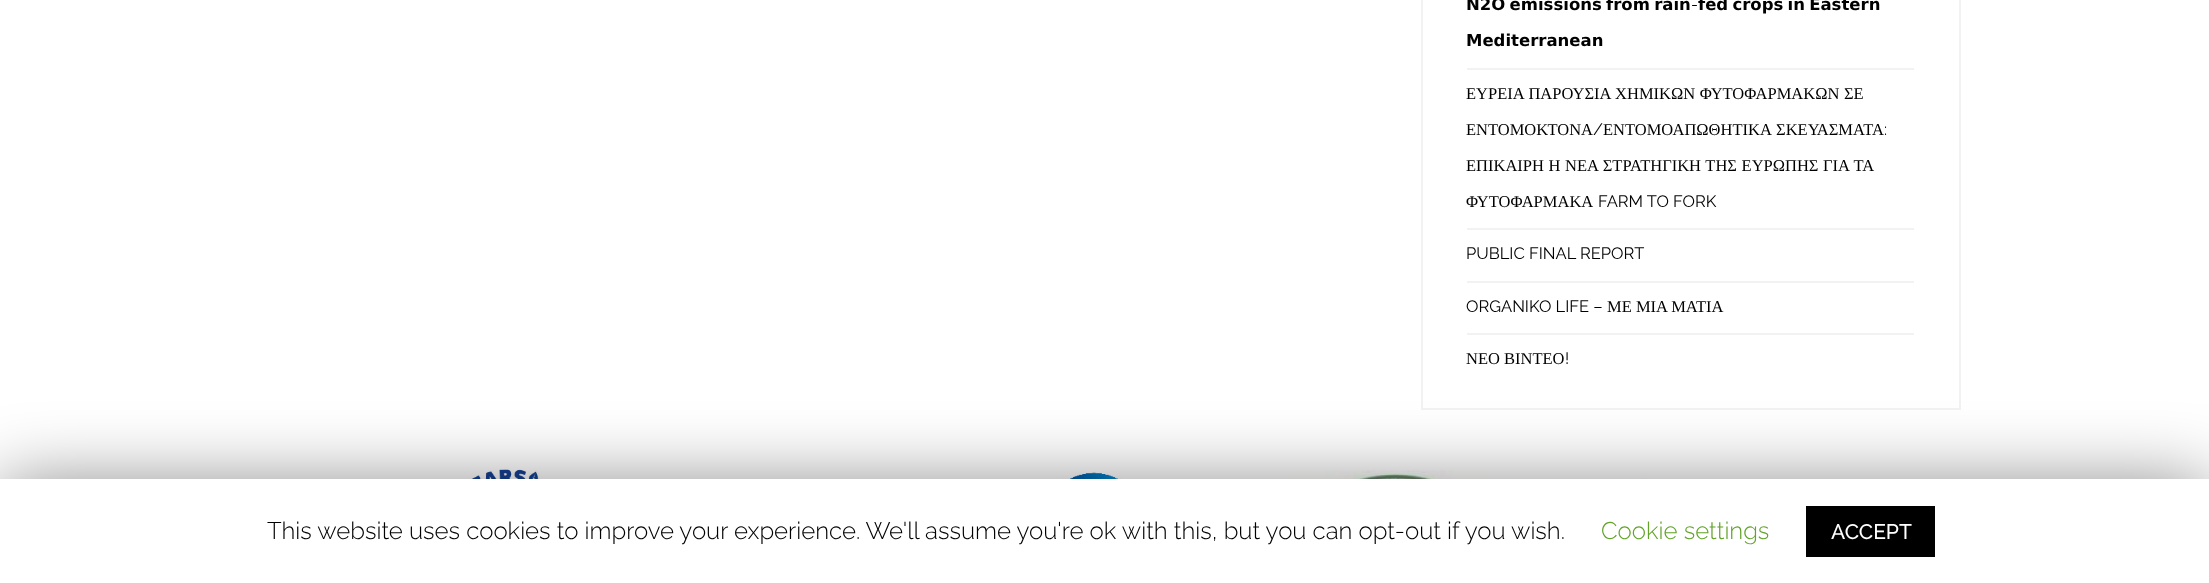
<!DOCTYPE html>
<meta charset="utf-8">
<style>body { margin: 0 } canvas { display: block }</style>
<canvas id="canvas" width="2209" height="583"></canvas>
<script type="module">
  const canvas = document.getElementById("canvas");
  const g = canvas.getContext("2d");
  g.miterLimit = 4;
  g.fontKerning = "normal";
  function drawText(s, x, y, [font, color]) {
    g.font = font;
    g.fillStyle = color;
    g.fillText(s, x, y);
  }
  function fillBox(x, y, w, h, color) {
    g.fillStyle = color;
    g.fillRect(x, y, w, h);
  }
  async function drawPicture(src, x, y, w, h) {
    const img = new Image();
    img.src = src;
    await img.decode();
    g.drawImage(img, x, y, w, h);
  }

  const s1 = ["bold 16.5px DejaVu Sans", "#000000"];
  const s2 = ["16.5px Raleway", "#000000"];
  const s3 = ["16.5px Liberation Serif", "#000000"];
  const s4 = ["300 24px Raleway", "#000000"];
  const s5 = ["300 24px Raleway", "#62A329"];
  const s6 = ["500 21px Raleway", "#FFFFFF"];

  fillBox(0, 0, 2209, 583, "#FFFFFF");
  g.strokeStyle = "#F2F2F2";
  g.lineWidth = 2;
  g.strokeRect(1422, -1, 538, 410);
  fillBox(1467, 68, 447, 2, "#F2F2F2");
  g.wordSpacing = "-1.5px";
  drawText("𝗡𝟮𝗢 𝗲𝗺𝗶𝘀𝘀𝗶𝗼𝗻𝘀 𝗳𝗿𝗼𝗺 𝗿𝗮𝗶𝗻", 1466, 10, s1);
  g.wordSpacing = "0px";
  drawText("-", 1691, 10, s2);
  g.wordSpacing = "-1.5px";
  drawText("𝗳𝗲𝗱 𝗰𝗿𝗼𝗽𝘀 𝗶𝗻 𝗘𝗮𝘀𝘁𝗲𝗿𝗻", 1698, 10, s1);
  g.wordSpacing = "0px";
  drawText("𝗠𝗲𝗱𝗶𝘁𝗲𝗿𝗿𝗮𝗻𝗲𝗮𝗻", 1466, 46, s1);
  fillBox(1467, 228, 447, 2, "#F2F2F2");
  g.wordSpacing = "0.5px";
  drawText("ΕΥΡΕΙΑ ΠΑΡΟΥΣΙΑ ΧΗΜΙΚΩΝ ΦΥΤΟΦΑΡΜΑΚΩΝ ΣΕ", 1466, 99, s3);
  g.wordSpacing = "0px";
  drawText("ΕΝΤΟΜΟΚΤΟΝΑ", 1466, 135, s3);
  drawText("/", 1593, 135, s2);
  g.wordSpacing = "1px";
  drawText("ΕΝΤΟΜΟΑΠΩΘΗΤΙΚΑ ΣΚΕΥΑΣΜΑΤΑ", 1603, 135, s3);
  g.wordSpacing = "0px";
  drawText(":", 1884, 135, s2);
  g.wordSpacing = "0.5px";
  drawText("ΕΠΙΚΑΙΡΗ Η ΝΕΑ ΣΤΡΑΤΗΓΙΚΗ ΤΗΣ ΕΥΡΩΠΗΣ ΓΙΑ ΤΑ", 1466, 171, s3);
  g.wordSpacing = "0px";
  drawText("ΦΥΤΟΦΑΡΜΑΚΑ", 1466, 207, s3);
  drawText("FARM TO FORK", 1598, 207, s2);
  fillBox(1467, 281, 447, 2, "#F2F2F2");
  drawText("PUBLIC FINAL REPORT", 1466, 259, s2);
  fillBox(1467, 333, 447, 2, "#F2F2F2");
  drawText("ORGANIKO LIFE –", 1466, 312, s2);
  drawText("ΜΕ ΜΙΑ ΜΑΤΙΑ", 1607, 312, s3);
  drawText("ΝΕΟ ΒΙΝΤΕΟ", 1466, 364, s3);
  drawText("!", 1565, 364, s2);
  await drawPicture("pic1.png", 423, 469, 147, 10);
  await drawPicture("pic2.png", 1043, 472, 117, 7);
  await drawPicture("pic3.png", 1290, 470, 200, 9);
  await drawPicture("pic4.png", 1599, 478, 191, 1);
  g.fillStyle = "rgba(0, 0, 0, 0.5)";
  g.filter = "blur(37.5px)";
  g.beginPath();
  g.rect(0, 486, 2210, 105);
  g.fill();
  g.filter = "none";
  fillBox(0, 479, 2209, 104, "#FFFFFF");
  drawText("This website uses cookies to improve your experience. We'll assume you're ok with this, but you can opt-out if you wish.", 267, 539, s4);
  drawText("Cookie settings", 1601, 539, s5);
  fillBox(1806, 506, 129, 51, "#000000");
  drawText("ACCEPT", 1831, 539, s6);
</script>
